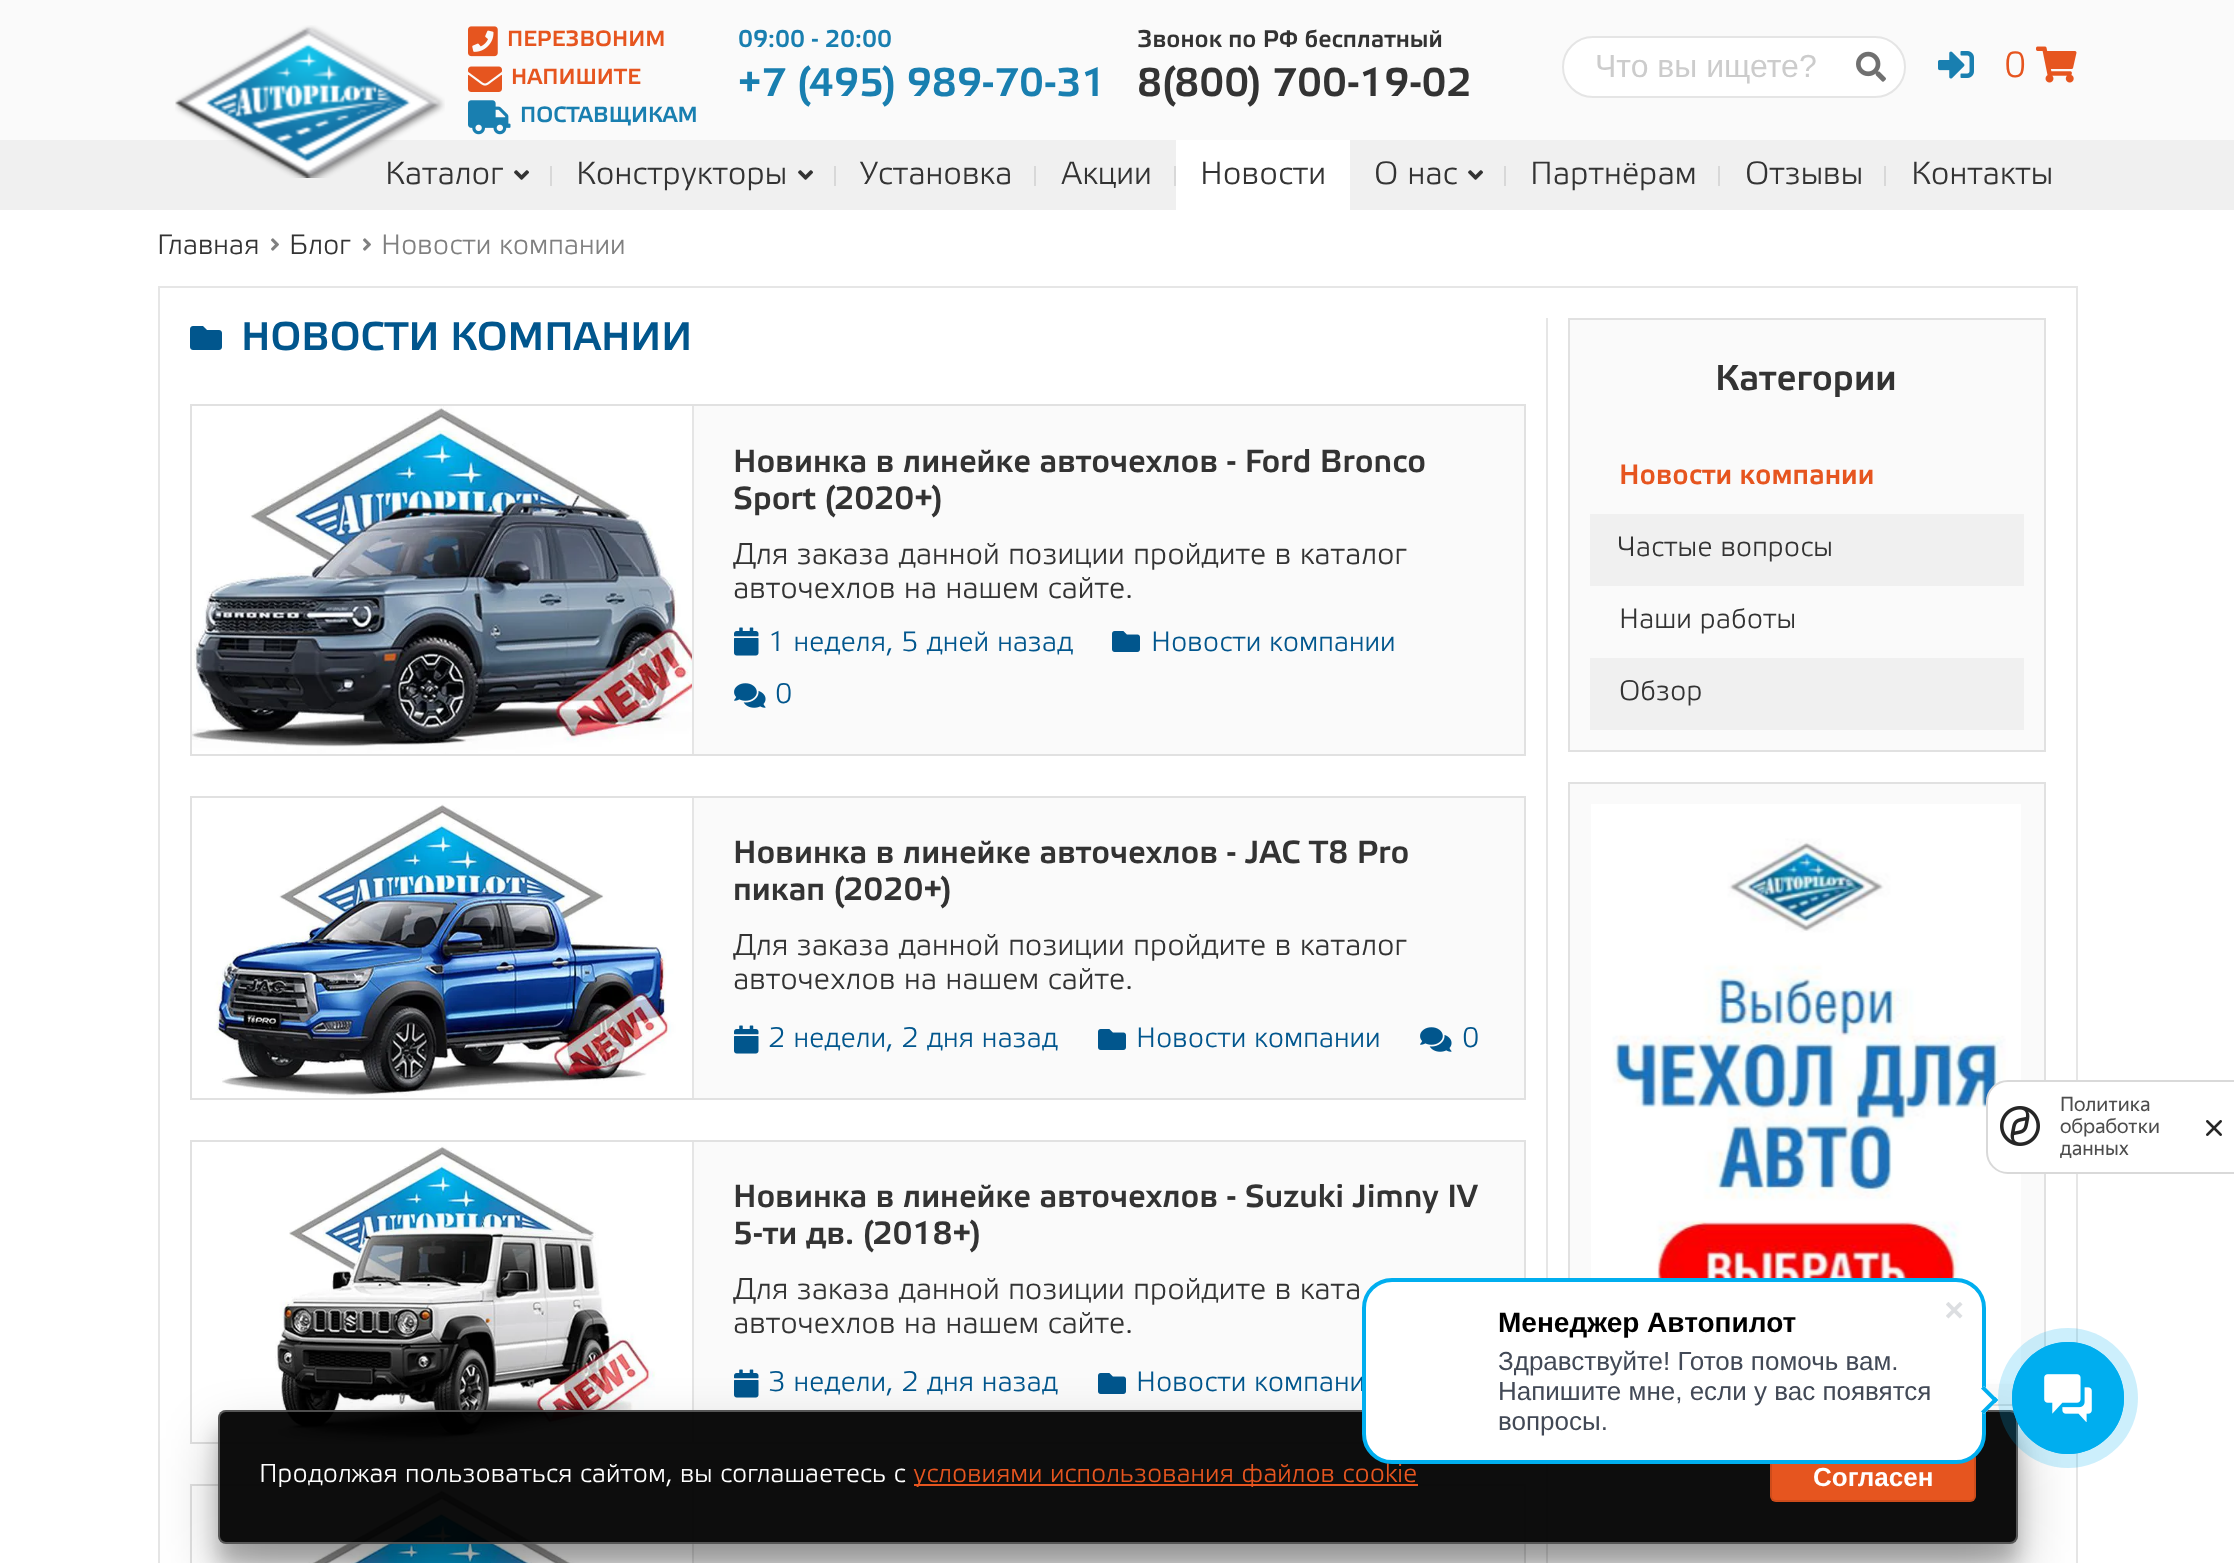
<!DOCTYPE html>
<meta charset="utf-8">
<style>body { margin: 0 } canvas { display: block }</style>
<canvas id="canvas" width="2234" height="1563"></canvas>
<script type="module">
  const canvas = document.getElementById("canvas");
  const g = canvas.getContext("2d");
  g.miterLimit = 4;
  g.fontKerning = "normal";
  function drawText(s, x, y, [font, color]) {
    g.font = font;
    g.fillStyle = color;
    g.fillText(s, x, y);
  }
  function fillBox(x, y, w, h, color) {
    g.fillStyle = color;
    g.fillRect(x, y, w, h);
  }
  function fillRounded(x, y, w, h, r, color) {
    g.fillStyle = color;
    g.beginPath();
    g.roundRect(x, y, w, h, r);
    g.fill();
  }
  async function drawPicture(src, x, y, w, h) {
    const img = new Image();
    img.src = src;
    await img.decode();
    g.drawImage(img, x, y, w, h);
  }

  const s1 = ["300 22px 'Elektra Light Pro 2'", "#E6551F"];
  const s2 = ["300 22px 'Elektra Light Pro 2'", "#197FB0"];
  const s3 = ["300 24px 'Elektra Light Pro 2'", "#197FB0"];
  const s4 = ["300 40px 'Elektra Light Pro 2'", "#197FB0"];
  const s5 = ["300 24px 'Elektra Light Pro 2'", "#333333"];
  const s6 = ["300 40px 'Elektra Light Pro 2'", "#333333"];
  const s7 = ["32px Liberation Sans", "#CCCCCC"];
  const s8 = ["300 36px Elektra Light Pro", "#E6551F"];
  const s9 = ["300 32px Elektra Light Pro", "#333333"];
  const s10 = ["300 28px Elektra Light Pro", "#333333"];
  const s11 = ["300 28px Elektra Light Pro", "#808080"];
  const s12 = ["300 40px 'Elektra Light Pro 2'", "#01568D"];
  const s13 = ["300 32px 'Elektra Light Pro 2'", "#333333"];
  const s14 = ["300 30px Elektra Light Pro", "#333333"];
  const s15 = ["300 28px Elektra Light Pro", "#01568D"];
  const s16 = ["300 36px 'Elektra Light Pro 2'", "#333333"];
  const s17 = ["300 28px 'Elektra Light Pro 2'", "#E6551F"];
  const s18 = ["20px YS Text", "#4D4D4D"];
  const s19 = ["300 26px Elektra Light Pro", "#E6551F"];
  const s20 = ["bold 28px Liberation Sans", "#000000"];
  const s21 = ["26px Liberation Sans", "#424956"];
  const s22 = ["300 26px Elektra Light Pro", "#FFFFFF"];
  const s23 = ["bold 26px Liberation Sans", "#FFFFFF"];

  fillBox(0, 0, 2234, 1563, "#FFFFFF");
  fillBox(0, 0, 2234, 140, "#FAFAFA");
  fillBox(0, 140, 2234, 70, "#F0F0F0");
  await drawPicture("pic1.png", 175, 25, 270, 153);
  await drawPicture("pic2.png", 468, 26, 30, 31);
  drawText("ПЕРЕЗВОНИМ", 507, 46, s1);
  await drawPicture("pic3.png", 468, 66, 34, 26);
  drawText("НАПИШИТЕ", 511, 84, s1);
  await drawPicture("pic4.png", 468, 100, 43, 35);
  drawText("ПОСТАВЩИКАМ", 520, 122, s2);
  drawText("09:00 - 20:00", 738, 47, s3);
  drawText("+7 (495) 989-70-31", 738, 96, s4);
  drawText("Звонок по РФ бесплатный", 1137, 47, s5);
  drawText("8(800) 700-19-02", 1137, 96, s6);
  g.fillStyle = "#FFFFFF";
  g.beginPath();
  g.roundRect(1563, 37, 342, 60, 30);
  g.fill();
  g.strokeStyle = "#E5E5E5";
  g.lineWidth = 2;
  g.stroke();
  drawText("Что вы ищете?", 1595, 77, s7);
  await drawPicture("pic5.png", 1856, 51, 30, 31);
  await drawPicture("pic6.png", 1938, 51, 36, 28);
  drawText("0", 2004, 77, s8);
  await drawPicture("pic7.png", 2036, 46, 41, 37);
  drawText("Каталог", 385, 184, s9);
  await drawPicture("pic8.png", 514, 170, 15, 10);
  fillBox(550, 166, 2, 20, "#D8D8D8");
  drawText("Конструкторы", 576, 184, s9);
  await drawPicture("pic8.png", 798, 170, 15, 10);
  fillBox(834, 166, 2, 20, "#D8D8D8");
  drawText("Установка", 860, 184, s9);
  fillBox(1034, 166, 2, 20, "#D8D8D8");
  drawText("Акции", 1061, 184, s9);
  fillBox(1174, 166, 2, 20, "#D8D8D8");
  fillBox(1176, 140, 174, 70, "#FFFFFF");
  drawText("Новости", 1200, 184, s9);
  drawText("О нас", 1374, 184, s9);
  await drawPicture("pic8.png", 1468, 170, 15, 10);
  fillBox(1504, 166, 2, 20, "#D8D8D8");
  drawText("Партнёрам", 1530, 184, s9);
  fillBox(1718, 166, 2, 20, "#D8D8D8");
  drawText("Отзывы", 1745, 184, s9);
  fillBox(1884, 166, 2, 20, "#D8D8D8");
  drawText("Контакты", 1911, 184, s9);
  drawText("Главная", 157, 254, s10);
  await drawPicture("pic9.png", 271, 238, 8, 13);
  drawText("Блог", 289, 254, s10);
  await drawPicture("pic9.png", 363, 238, 8, 13);
  drawText("Новости компании", 381, 254, s11);
  g.strokeStyle = "#E6E6E6";
  g.strokeRect(159, 287, 1918, 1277);
  await drawPicture("pic10.png", 190, 326, 32, 24);
  drawText("НОВОСТИ КОМПАНИИ", 241, 350, s12);
  fillBox(694, 406, 830, 348, "#FAFAFA");
  g.strokeStyle = "#E1E1E1";
  g.strokeRect(191, 405, 1334, 350);
  fillBox(692, 406, 2, 348, "#E5E5E5");
  await drawPicture("pic11.png", 192, 406, 500, 348);
  drawText("Новинка в линейке авточехлов - Ford Bronco", 733, 472, s13);
  drawText("Sport (2020+)", 733, 509, s13);
  drawText("Для заказа данной позиции пройдите в каталог", 733, 564, s14);
  drawText("авточехлов на нашем сайте.", 733, 598, s14);
  await drawPicture("pic12.png", 734, 627, 25, 29);
  drawText("1 неделя, 5 дней назад", 768, 651, s15);
  await drawPicture("pic13.png", 1112, 631, 28, 21);
  drawText("Новости компании", 1151, 651, s15);
  await drawPicture("pic14.png", 734, 683, 32, 25);
  drawText("0", 775, 703, s15);
  fillBox(694, 798, 830, 300, "#FAFAFA");
  g.strokeRect(191, 797, 1334, 302);
  fillBox(692, 798, 2, 300, "#E5E5E5");
  await drawPicture("pic15.png", 192, 798, 500, 300);
  drawText("Новинка в линейке авточехлов - JAC T8 Pro", 733, 863, s13);
  drawText("пикап (2020+)", 733, 900, s13);
  drawText("Для заказа данной позиции пройдите в каталог", 733, 955, s14);
  drawText("авточехлов на нашем сайте.", 733, 989, s14);
  await drawPicture("pic12.png", 734, 1025, 25, 29);
  drawText("2 недели, 2 дня назад", 768, 1047, s15);
  await drawPicture("pic13.png", 1098, 1029, 28, 21);
  drawText("Новости компании", 1136, 1047, s15);
  await drawPicture("pic14.png", 1420, 1027, 32, 25);
  drawText("0", 1462, 1047, s15);
  fillBox(694, 1142, 830, 300, "#FAFAFA");
  g.strokeRect(191, 1141, 1334, 302);
  fillBox(692, 1142, 2, 300, "#E5E5E5");
  await drawPicture("pic16.png", 192, 1142, 500, 300);
  drawText("Новинка в линейке авточехлов - Suzuki Jimny IV", 733, 1207, s13);
  drawText("5-ти дв. (2018+)", 733, 1244, s13);
  drawText("Для заказа данной позиции пройдите в ката", 733, 1299, s14);
  drawText("авточехлов на нашем сайте.", 733, 1333, s14);
  await drawPicture("pic12.png", 734, 1369, 25, 29);
  drawText("3 недели, 2 дня назад", 768, 1391, s15);
  await drawPicture("pic13.png", 1098, 1373, 28, 21);
  drawText("Новости компани", 1136, 1391, s15);
  fillBox(694, 1486, 830, 77, "#FAFAFA");
  g.strokeRect(191, 1485, 1334, 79);
  fillBox(692, 1486, 2, 77, "#E5E5E5");
  await drawPicture("pic17.png", 192, 1486, 500, 77);
  fillBox(1546, 318, 2, 1245, "#E6E6E6");
  g.fillStyle = "#FAFAFA";
  g.beginPath();
  g.rect(1569, 319, 476, 432);
  g.fill();
  g.stroke();
  drawText("Категории", 1715, 390, s16);
  drawText("Новости компании", 1619, 484, s17);
  fillBox(1590, 514, 434, 72, "#F0F0F0");
  drawText("Частые вопросы", 1619, 556, s10);
  drawText("Наши работы", 1619, 628, s10);
  fillBox(1590, 658, 434, 72, "#F0F0F0");
  drawText("Обзор", 1619, 700, s10);
  g.fillStyle = "#FAFAFA";
  g.beginPath();
  g.rect(1569, 783, 476, 622);
  g.fill();
  g.stroke();
  await drawPicture("pic18.png", 1591, 804, 430, 580);
  g.fillStyle = "#FFFFFF";
  g.beginPath();
  g.roundRect(1987, 1081, 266, 92, 21);
  g.fill();
  g.strokeStyle = "#D9D9D9";
  g.stroke();
  await drawPicture("pic19.png", 2000, 1106, 40, 40);
  drawText("Политика", 2060, 1111, s18);
  drawText("обработки", 2060, 1133, s18);
  drawText("данных", 2060, 1155, s18);
  await drawPicture("pic20.png", 2206, 1120, 16, 16);
  g.save();
  g.beginPath();
  g.moveTo(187, 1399);
  g.lineTo(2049, 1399);
  g.lineTo(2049, 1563);
  g.lineTo(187, 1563);
  g.closePath();
  g.moveTo(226, 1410);
  g.lineTo(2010, 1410);
  g.bezierCurveTo(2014.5, 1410, 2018, 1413.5, 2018, 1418);
  g.lineTo(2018, 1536);
  g.bezierCurveTo(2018, 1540.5, 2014.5, 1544, 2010, 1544);
  g.lineTo(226, 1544);
  g.bezierCurveTo(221.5, 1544, 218, 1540.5, 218, 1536);
  g.lineTo(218, 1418);
  g.bezierCurveTo(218, 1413.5, 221.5, 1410, 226, 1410);
  g.closePath();
  g.clip("evenodd");
  g.fillStyle = "rgba(0, 0, 0, 0.22)";
  g.filter = "blur(10px)";
  g.beginPath();
  g.roundRect(218, 1430, 1800, 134, 8);
  g.fill();
  g.filter = "none";
  g.restore();
  g.save();
  g.beginPath();
  g.moveTo(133, 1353);
  g.lineTo(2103, 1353);
  g.lineTo(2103, 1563);
  g.lineTo(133, 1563);
  g.closePath();
  g.moveTo(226, 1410);
  g.lineTo(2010, 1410);
  g.bezierCurveTo(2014.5, 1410, 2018, 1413.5, 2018, 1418);
  g.lineTo(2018, 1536);
  g.bezierCurveTo(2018, 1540.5, 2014.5, 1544, 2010, 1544);
  g.lineTo(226, 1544);
  g.bezierCurveTo(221.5, 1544, 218, 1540.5, 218, 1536);
  g.lineTo(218, 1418);
  g.bezierCurveTo(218, 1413.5, 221.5, 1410, 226, 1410);
  g.closePath();
  g.clip("evenodd");
  g.fillStyle = "rgba(0, 0, 0, 0.25)";
  g.filter = "blur(28px)";
  g.beginPath();
  g.roundRect(218, 1438, 1800, 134, 8);
  g.fill();
  g.filter = "none";
  g.restore();
  fillRounded(218, 1410, 1800, 134, 8, "rgba(0, 0, 0, 0.95)");
  g.beginPath();
  g.roundRect(219, 1411, 1798, 132, 7);
  g.strokeStyle = "rgba(255, 255, 255, 0.3)";
  g.stroke();
  fillBox(914, 1484, 504, 2, "#E6551F");
  drawText("условиями использования файлов cookie", 913, 1482, s19);
  fillRounded(1770, 1452, 206, 50, 6, "#E6551F");
  g.beginPath();
  g.roundRect(1771, 1453, 204, 48, 5);
  g.strokeStyle = "rgba(0, 0, 0, 0.1)";
  g.stroke();
  g.fillStyle = "#FFFFFF";
  g.beginPath();
  g.roundRect(1364, 1280, 620, 182, 28);
  g.fill();
  g.strokeStyle = "#00AEEF";
  g.lineWidth = 4;
  g.stroke();
  drawText("Менеджер Автопилот", 1498, 1332, s20);
  drawText("Здравствуйте! Готов помочь вам.", 1498, 1370, s21);
  drawText("Напишите мне, если у вас появятся", 1498, 1400, s21);
  drawText("вопросы.", 1498, 1430, s21);
  await drawPicture("pic21.png", 1946, 1302, 17, 17);
  g.fillStyle = "#FFFFFF";
  g.beginPath();
  g.moveTo(1970, 1400);
  g.lineTo(1984, 1386);
  g.lineTo(1998, 1400);
  g.lineTo(1984, 1414);
  g.closePath();
  g.fill();
  g.fillStyle = "#00AEEF";
  g.beginPath();
  g.moveTo(1981, 1388.5);
  g.lineTo(1984, 1386);
  g.lineTo(1998, 1400);
  g.lineTo(1995.5, 1403);
  g.closePath();
  g.fill();
  g.beginPath();
  g.moveTo(1981, 1411.5);
  g.lineTo(1995.5, 1397);
  g.lineTo(1998, 1400);
  g.lineTo(1984, 1414);
  g.closePath();
  g.fill();
  g.fillStyle = "rgba(0, 174, 239, 0.2)";
  g.beginPath();
  g.arc(2068, 1398, 70, 0, Math.PI * 2);
  g.fill();
  g.beginPath();
  g.arc(2068, 1398, 55, 0, Math.PI * 2);
  g.lineWidth = 2;
  g.stroke();
  g.fillStyle = "#00AEEF";
  g.beginPath();
  g.arc(2068, 1398, 56, 0, Math.PI * 2);
  g.fill();
  await drawPicture("pic22.png", 2044, 1374, 48, 48);
  drawText("Продолжая пользоваться сайтом, вы соглашаетесь с", 259, 1482, s22);
  drawText("Согласен", 1813, 1486, s23);
</script>
